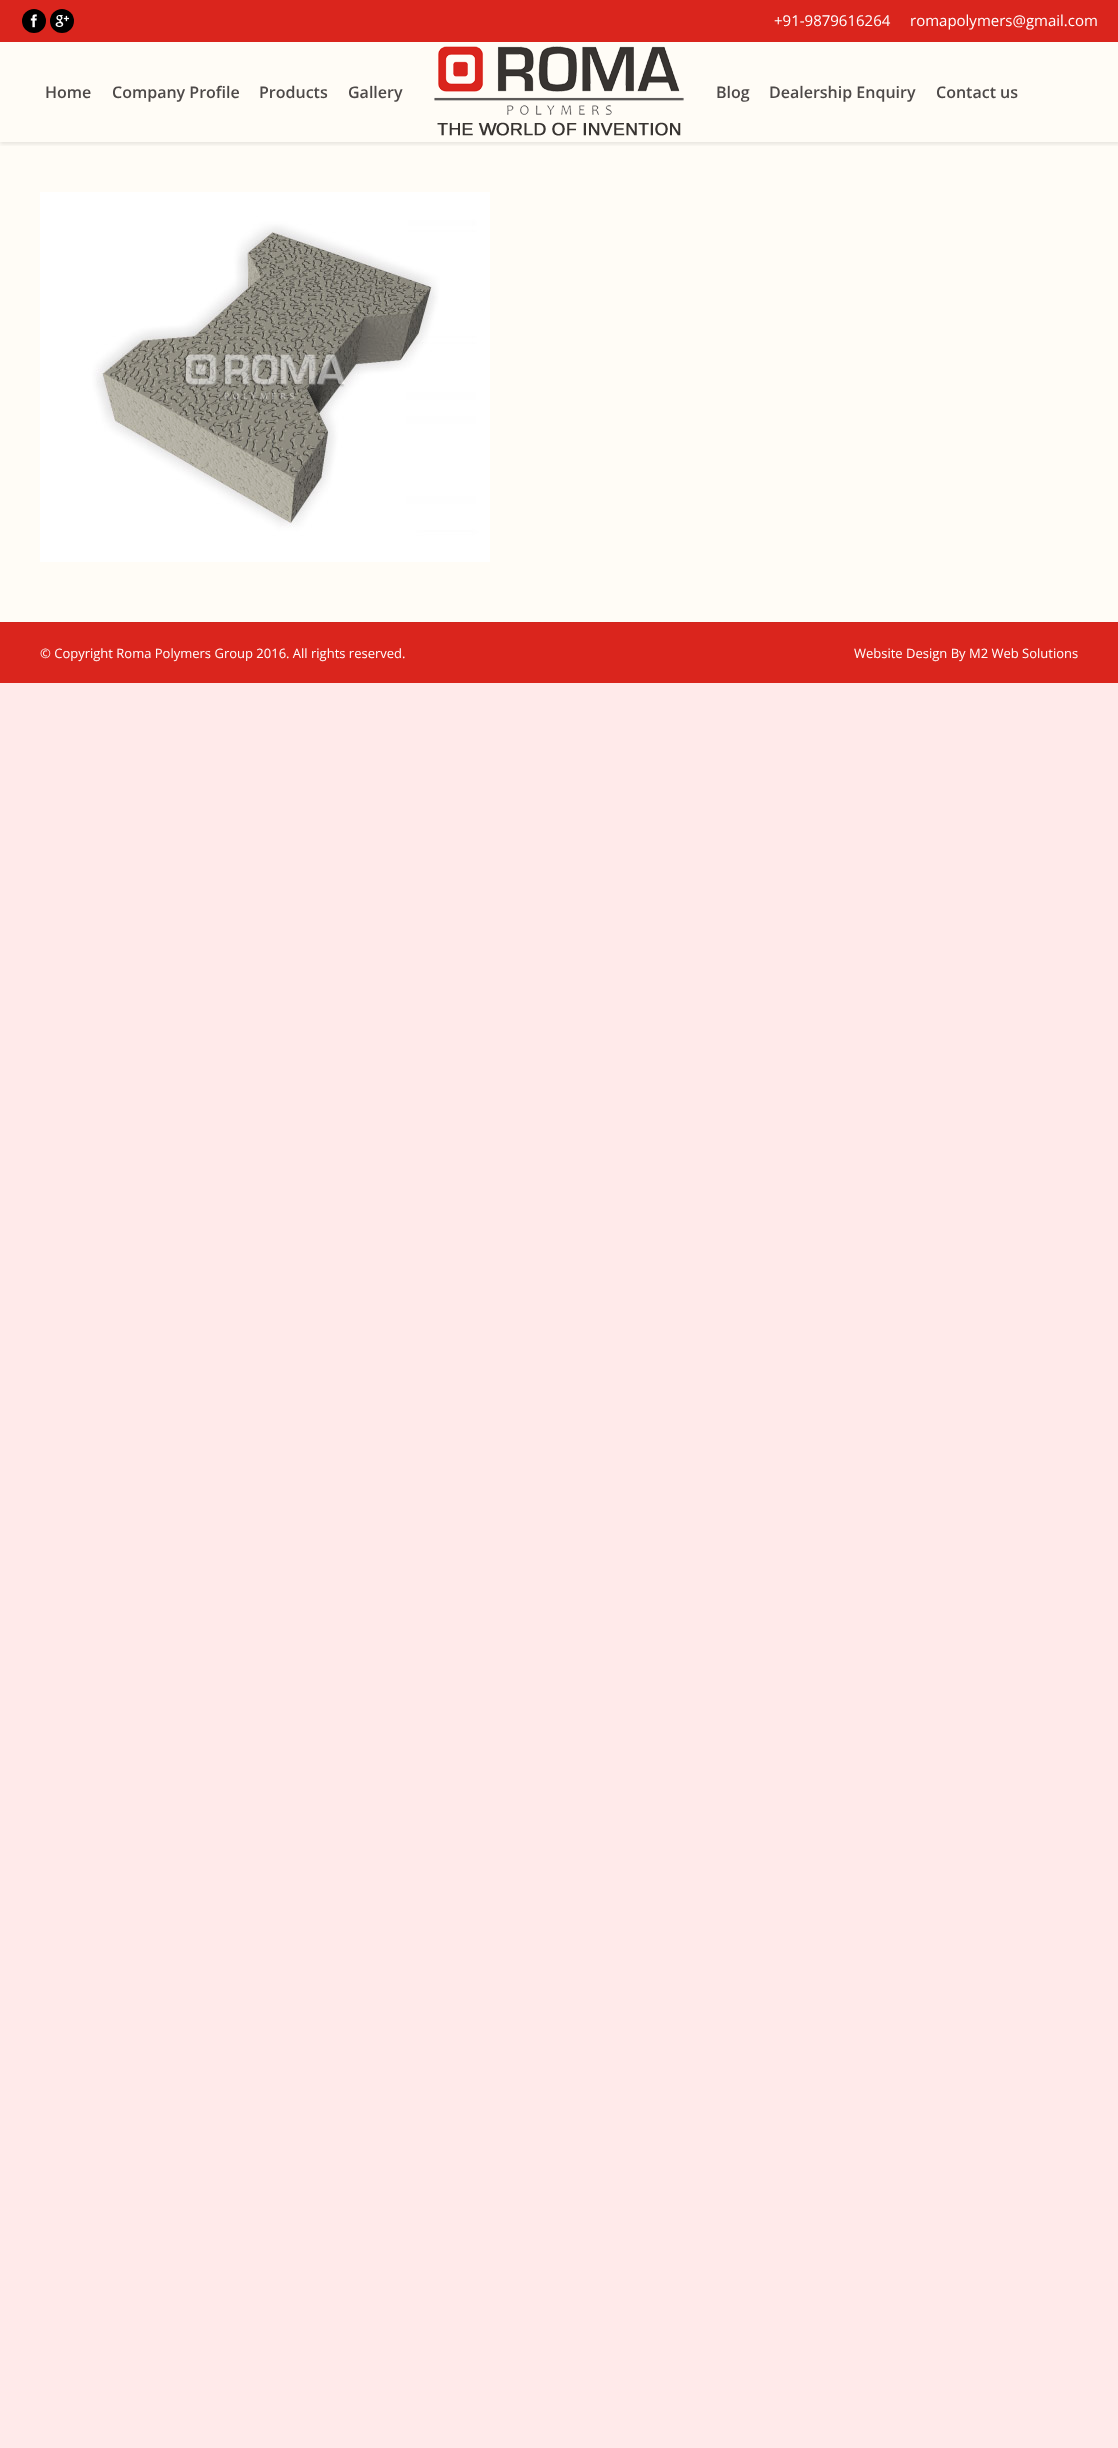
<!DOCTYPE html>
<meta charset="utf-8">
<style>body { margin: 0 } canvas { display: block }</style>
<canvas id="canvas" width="1118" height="2448"></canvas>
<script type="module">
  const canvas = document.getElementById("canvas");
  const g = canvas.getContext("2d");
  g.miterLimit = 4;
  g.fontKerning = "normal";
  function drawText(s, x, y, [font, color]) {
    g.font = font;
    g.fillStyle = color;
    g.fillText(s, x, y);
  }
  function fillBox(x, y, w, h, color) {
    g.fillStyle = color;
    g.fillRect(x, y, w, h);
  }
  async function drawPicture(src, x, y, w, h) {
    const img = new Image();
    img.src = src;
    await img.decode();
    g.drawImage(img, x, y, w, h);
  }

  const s1 = ["15px Open Sans", "#FFFFFF"];
  const s2 = ["600 16px Open Sans", "#4D4948"];
  const s3 = ["13px Open Sans", "#FFFFFF"];

  fillBox(0, 0, 1118, 2448, "#FFEAEA");
  fillBox(0, 42, 1118, 580, "#FFFCF6");
  g.save();
  g.beginPath();
  g.rect(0, 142, 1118, 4);
  g.clip();
  g.fillStyle = "rgba(0, 0, 0, 0.1)";
  g.filter = "blur(2px)";
  g.beginPath();
  g.rect(0, 0, 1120, 144);
  g.fill();
  g.filter = "none";
  g.restore();
  fillBox(0, 0, 1118, 42, "#DA251D");
  g.fillStyle = "#000000";
  g.beginPath();
  g.arc(34, 21, 12, 0, Math.PI * 2);
  g.fill();
  await drawPicture("pic1.png", 30, 14, 7, 14);
  g.beginPath();
  g.arc(62, 21, 12, 0, Math.PI * 2);
  g.fill();
  await drawPicture("pic2.png", 55, 15, 15, 12);
  drawText("+91-9879616264", 774, 26, s1);
  drawText("romapolymers@gmail.com", 910, 26, s1);
  drawText("Home", 45, 98, s2);
  drawText("Company Profile", 112, 98, s2);
  drawText("Products", 259, 98, s2);
  drawText("Gallery", 348, 98, s2);
  await drawPicture("pic3.png", 434, 46, 250, 90);
  drawText("Blog", 716, 98, s2);
  drawText("Dealership Enquiry", 769, 98, s2);
  drawText("Contact us", 936, 98, s2);
  await drawPicture("pic4.png", 40, 192, 450, 370);
  await drawPicture("pic5.png", 0, 622, 1118, 1);
  fillBox(0, 622, 1118, 1, "rgba(218, 37, 29, 0.96)");
  fillBox(0, 623, 1118, 60, "#DA251D");
  drawText("© Copyright Roma Polymers Group 2016. All rights reserved.", 40, 658, s3);
  drawText("Website Design By M2 Web Solutions", 854, 658, s3);
</script>
